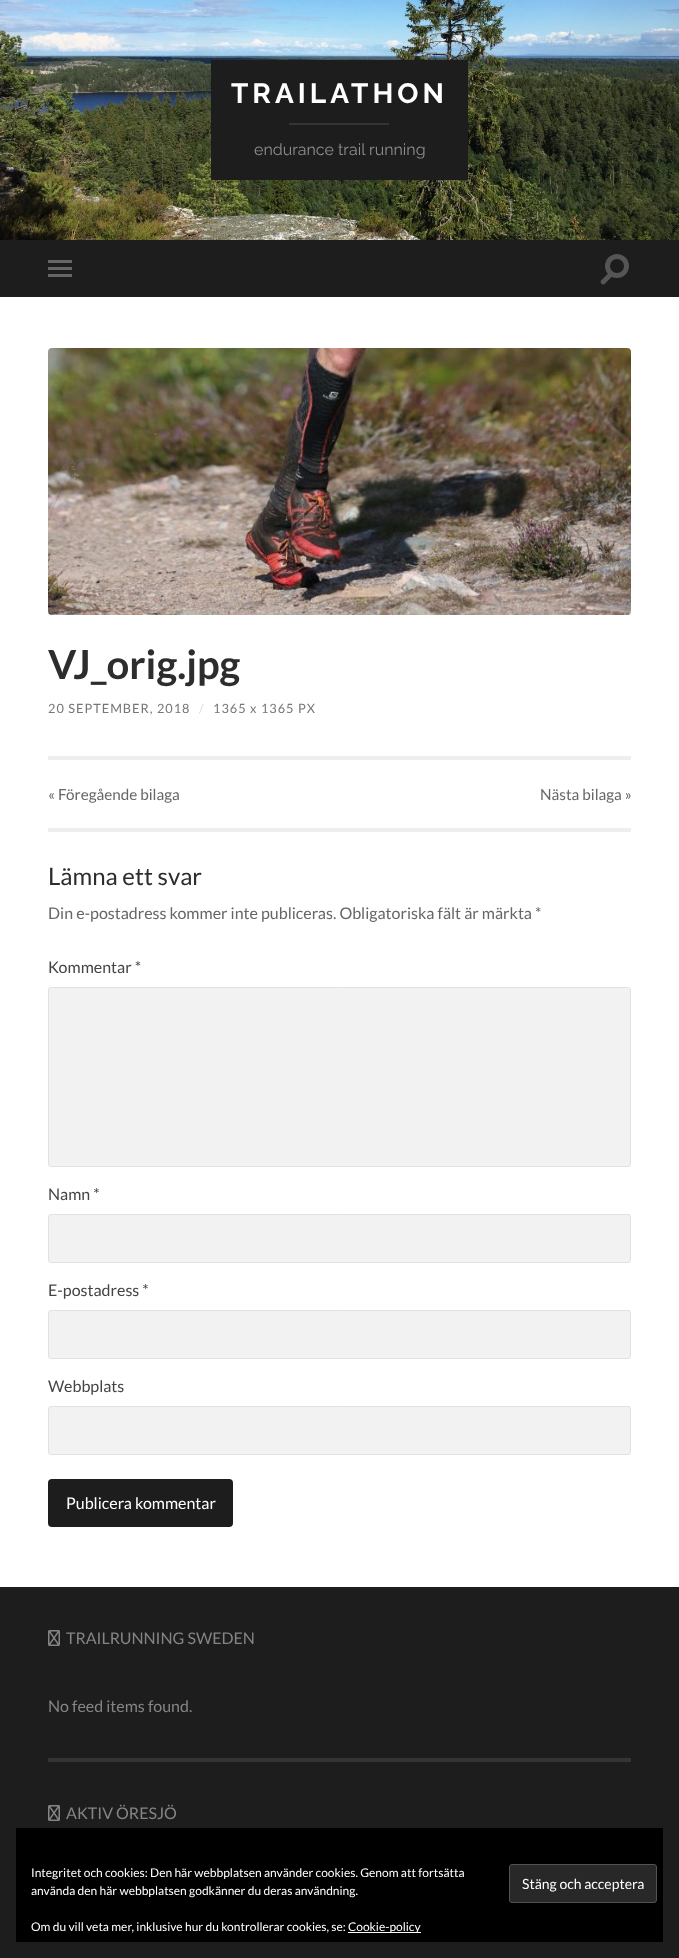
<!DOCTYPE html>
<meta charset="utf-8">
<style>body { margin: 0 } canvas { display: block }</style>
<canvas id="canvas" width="679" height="1958"></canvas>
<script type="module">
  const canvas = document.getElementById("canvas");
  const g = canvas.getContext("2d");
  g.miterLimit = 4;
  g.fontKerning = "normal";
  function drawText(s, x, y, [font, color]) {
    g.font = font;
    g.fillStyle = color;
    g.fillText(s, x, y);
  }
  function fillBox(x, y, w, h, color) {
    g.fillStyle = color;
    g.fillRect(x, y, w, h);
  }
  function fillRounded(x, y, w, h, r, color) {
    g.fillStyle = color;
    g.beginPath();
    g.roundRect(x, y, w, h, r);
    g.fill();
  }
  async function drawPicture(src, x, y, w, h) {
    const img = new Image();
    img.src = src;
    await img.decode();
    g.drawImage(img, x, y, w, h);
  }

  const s1 = ["100 28px Raleway", "#FFFFFF"];
  const s2 = ["100 16px 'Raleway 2'", "#8E8E8E"];
  const s3 = ["bold 40px Lato", "#2D2D2D"];
  const s4 = ["12.75px Lato", "#767676"];
  const s5 = ["12.75px Lato", "#DDDDDD"];
  const s6 = ["15.25px Lato", "#666666"];
  const s7 = ["24px Lato", "#2D2D2D"];
  const s8 = ["16px Lato", "#666666"];
  const s9 = ["16px Lato", "#444444"];
  const s10 = ["16px Lato", "#FFFFFF"];
  const s11 = ["16px Lato", "#858585"];
  const s12 = ["12px Lato", "#FFFFFF"];
  const s13 = ["14px Lato", "#FFFFFF"];

  fillBox(0, 0, 679, 1958, "#FFFFFF");
  await drawPicture("pic1.png", 0, 0, 679, 240);
  fillBox(211, 60, 257, 120, "#1D1D1D");
  g.letterSpacing = "4px";
  drawText("TRAILATHON", 231, 103, s1);
  fillBox(289, 123, 100, 2, "#343434");
  g.letterSpacing = "0px";
  drawText("endurance trail running", 254, 155, s2);
  fillBox(0, 240, 679, 57, "#1D1D1D");
  fillBox(48, 260, 24, 3, "#666666");
  fillBox(48, 267, 24, 3, "#666666");
  fillBox(48, 274, 24, 3, "#666666");
  g.fillStyle = "#555555";
  g.beginPath();
  g.arc(617, 266, 12, 0, Math.PI * 2);
  g.fill();
  g.fillStyle = "#1D1D1D";
  g.beginPath();
  g.arc(617, 266, 7, 0, Math.PI * 2);
  g.fill();
  g.fillStyle = "#555555";
  g.beginPath();
  g.moveTo(601, 280.5);
  g.lineTo(609.5, 272);
  g.lineTo(613, 275.5);
  g.lineTo(607.5, 281);
  g.bezierCurveTo(605.5, 283, 603.5, 286.5, 601, 283);
  g.bezierCurveTo(600.5, 282, 600.5, 281, 601, 280.5);
  g.closePath();
  g.fill();
  await drawPicture("pic2.png", 48, 348, 583, 267);
  drawText("VJ_orig.jpg", 48, 679, s3);
  g.letterSpacing = "1px";
  drawText("20 SEPTEMBER, 2018", 48, 713, s4);
  drawText("/", 199, 713, s5);
  drawText("1365 x 1365 PX", 213, 713, s4);
  fillBox(48, 756, 583, 4, "#EEEEEE");
  fillBox(48, 828, 583, 4, "#EEEEEE");
  g.letterSpacing = "0px";
  drawText("« Föregående bilaga", 48, 800, s6);
  drawText("Nästa bilaga »", 540, 800, s6);
  drawText("Lämna ett svar", 48, 885, s7);
  drawText("Din e-postadress kommer inte publiceras. Obligatoriska fält är märkta *", 48, 919, s8);
  drawText("Kommentar *", 48, 973, s9);
  g.fillStyle = "#F2F2F2";
  g.beginPath();
  g.roundRect(48.5, 987.5, 582, 179, 2.5);
  g.fill();
  g.strokeStyle = "#E1E1E3";
  g.stroke();
  drawText("Namn *", 48, 1200, s9);
  g.fillStyle = "#F2F2F2";
  g.beginPath();
  g.roundRect(48.5, 1214.5, 582, 48, 2.5);
  g.fill();
  g.stroke();
  drawText("E-postadress *", 48, 1296, s9);
  g.fillStyle = "#F2F2F2";
  g.beginPath();
  g.roundRect(48.5, 1310.5, 582, 48, 2.5);
  g.fill();
  g.stroke();
  drawText("Webbplats", 48, 1392, s9);
  g.fillStyle = "#F2F2F2";
  g.beginPath();
  g.roundRect(48.5, 1406.5, 582, 48, 2.5);
  g.fill();
  g.stroke();
  fillRounded(48, 1479, 185, 48, 4, "#1D1D1D");
  drawText("Publicera kommentar", 66, 1509, s10);
  fillBox(0, 1587, 679, 371, "#1D1D1D");
  await drawPicture("pic3.png", 48, 1630, 12, 16);
  drawText("TRAILRUNNING SWEDEN", 66, 1644, s11);
  drawText("No feed items found.", 48, 1712, s11);
  fillBox(48, 1758, 583, 4, "#343434");
  await drawPicture("pic3.png", 48, 1805, 12, 16);
  drawText("AKTIV ÖRESJÖ", 66, 1819, s11);
  fillBox(16, 1828, 647, 114, "#000000");
  drawText("Integritet och cookies: Den här webbplatsen använder cookies. Genom att fortsätta", 31, 1877, s12);
  drawText("använda den här webbplatsen godkänner du deras användning.", 31, 1895, s12);
  g.fillStyle = "#282828";
  g.beginPath();
  g.roundRect(509.5, 1864.5, 147, 38, 2.5);
  g.fill();
  g.strokeStyle = "#535353";
  g.stroke();
  drawText("Stäng och acceptera", 522, 1889, s13);
  drawText("Om du vill veta mer, inklusive hur du kontrollerar cookies, se:", 31, 1931, s12);
  fillBox(348, 1932, 73, 1, "#FFFFFF");
  drawText("Cookie-policy", 348, 1931, s12);
</script>
